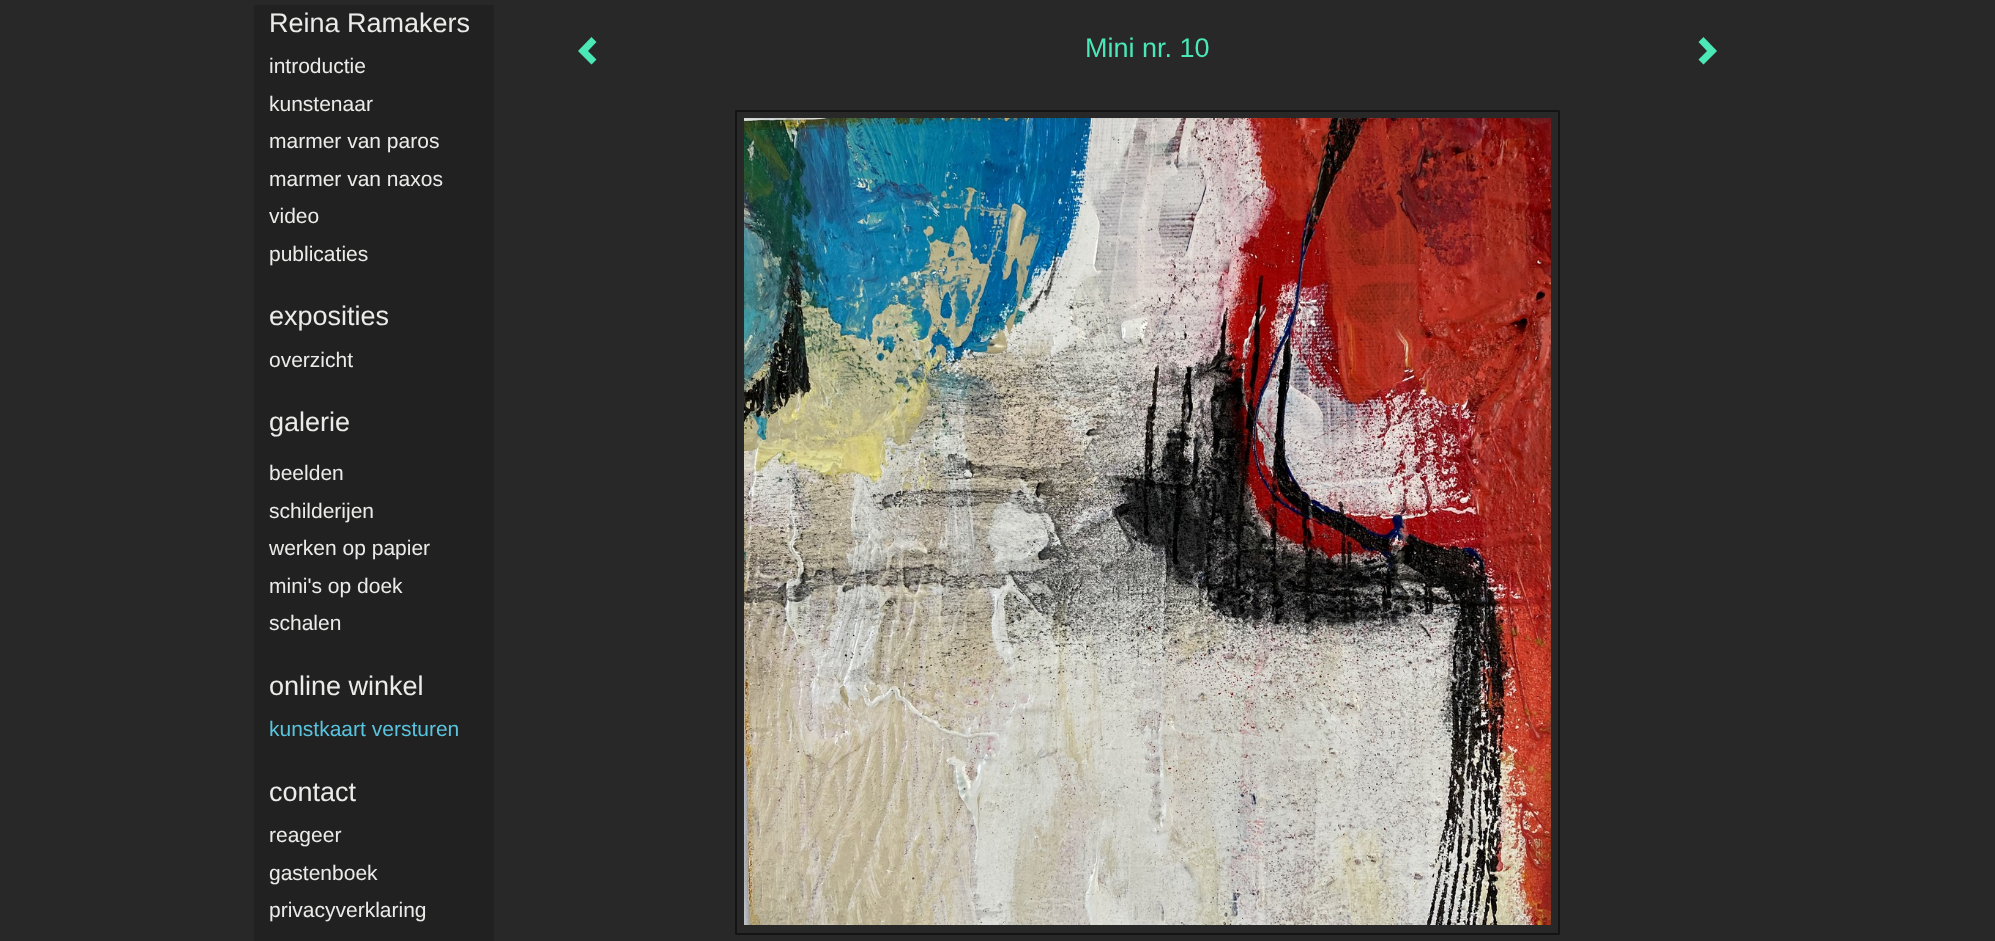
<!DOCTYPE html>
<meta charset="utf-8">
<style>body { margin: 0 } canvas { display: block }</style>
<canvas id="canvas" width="1995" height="941"></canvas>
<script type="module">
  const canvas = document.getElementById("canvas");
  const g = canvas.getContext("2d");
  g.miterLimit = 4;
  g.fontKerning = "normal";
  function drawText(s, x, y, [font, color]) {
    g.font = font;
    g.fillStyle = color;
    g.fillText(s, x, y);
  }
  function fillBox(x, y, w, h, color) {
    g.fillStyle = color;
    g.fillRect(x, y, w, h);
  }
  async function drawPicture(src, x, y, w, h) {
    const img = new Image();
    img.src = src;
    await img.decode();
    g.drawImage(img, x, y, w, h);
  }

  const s1 = ["27px Liberation Sans", "#EBEBEA"];
  const s2 = ["21px Liberation Sans", "#EBEBEA"];
  const s3 = ["21px Liberation Sans", "#59C4DE"];
  const s4 = ["27px Liberation Sans", "#4BE7B6"];

  fillBox(0, 0, 1995, 941, "#282828");
  fillBox(254, 5, 240, 936, "#212121");
  drawText("Reina Ramakers", 269, 32, s1);
  drawText("introductie", 269, 73, s2);
  drawText("kunstenaar", 269, 111, s2);
  drawText("marmer van paros", 269, 148, s2);
  drawText("marmer van naxos", 269, 186, s2);
  drawText("video", 269, 223, s2);
  drawText("publicaties", 269, 261, s2);
  drawText("exposities", 269, 325, s1);
  drawText("overzicht", 269, 367, s2);
  drawText("galerie", 269, 431, s1);
  drawText("beelden", 269, 480, s2);
  drawText("schilderijen", 269, 518, s2);
  drawText("werken op papier", 269, 555, s2);
  drawText("mini's op doek", 269, 593, s2);
  drawText("schalen", 269, 630, s2);
  drawText("online winkel", 269, 695, s1);
  drawText("kunstkaart versturen", 269, 736, s3);
  drawText("contact", 269, 801, s1);
  drawText("reageer", 269, 842, s2);
  drawText("gastenboek", 269, 880, s2);
  drawText("privacyverklaring", 269, 917, s2);
  g.fillStyle = "#4BE7B6";
  g.beginPath();
  g.moveTo(596.5, 42);
  g.lineTo(588, 51);
  g.lineTo(596.5, 59.5);
  g.lineTo(591.5, 64.5);
  g.lineTo(578, 51);
  g.lineTo(591.5, 37);
  g.closePath();
  g.fill();
  drawText("Mini nr. 10", 1085, 57, s4);
  g.beginPath();
  g.moveTo(1717, 51);
  g.lineTo(1703.5, 64.5);
  g.lineTo(1698.5, 59.5);
  g.lineTo(1707, 51);
  g.lineTo(1698.5, 42);
  g.lineTo(1703.5, 37);
  g.closePath();
  g.fill();
  g.beginPath();
  g.roundRect(736, 111, 823, 823, 0.5);
  g.strokeStyle = "#141414";
  g.lineWidth = 2;
  g.stroke();
  await drawPicture("pic1.png", 744, 118, 807, 807);
</script>
